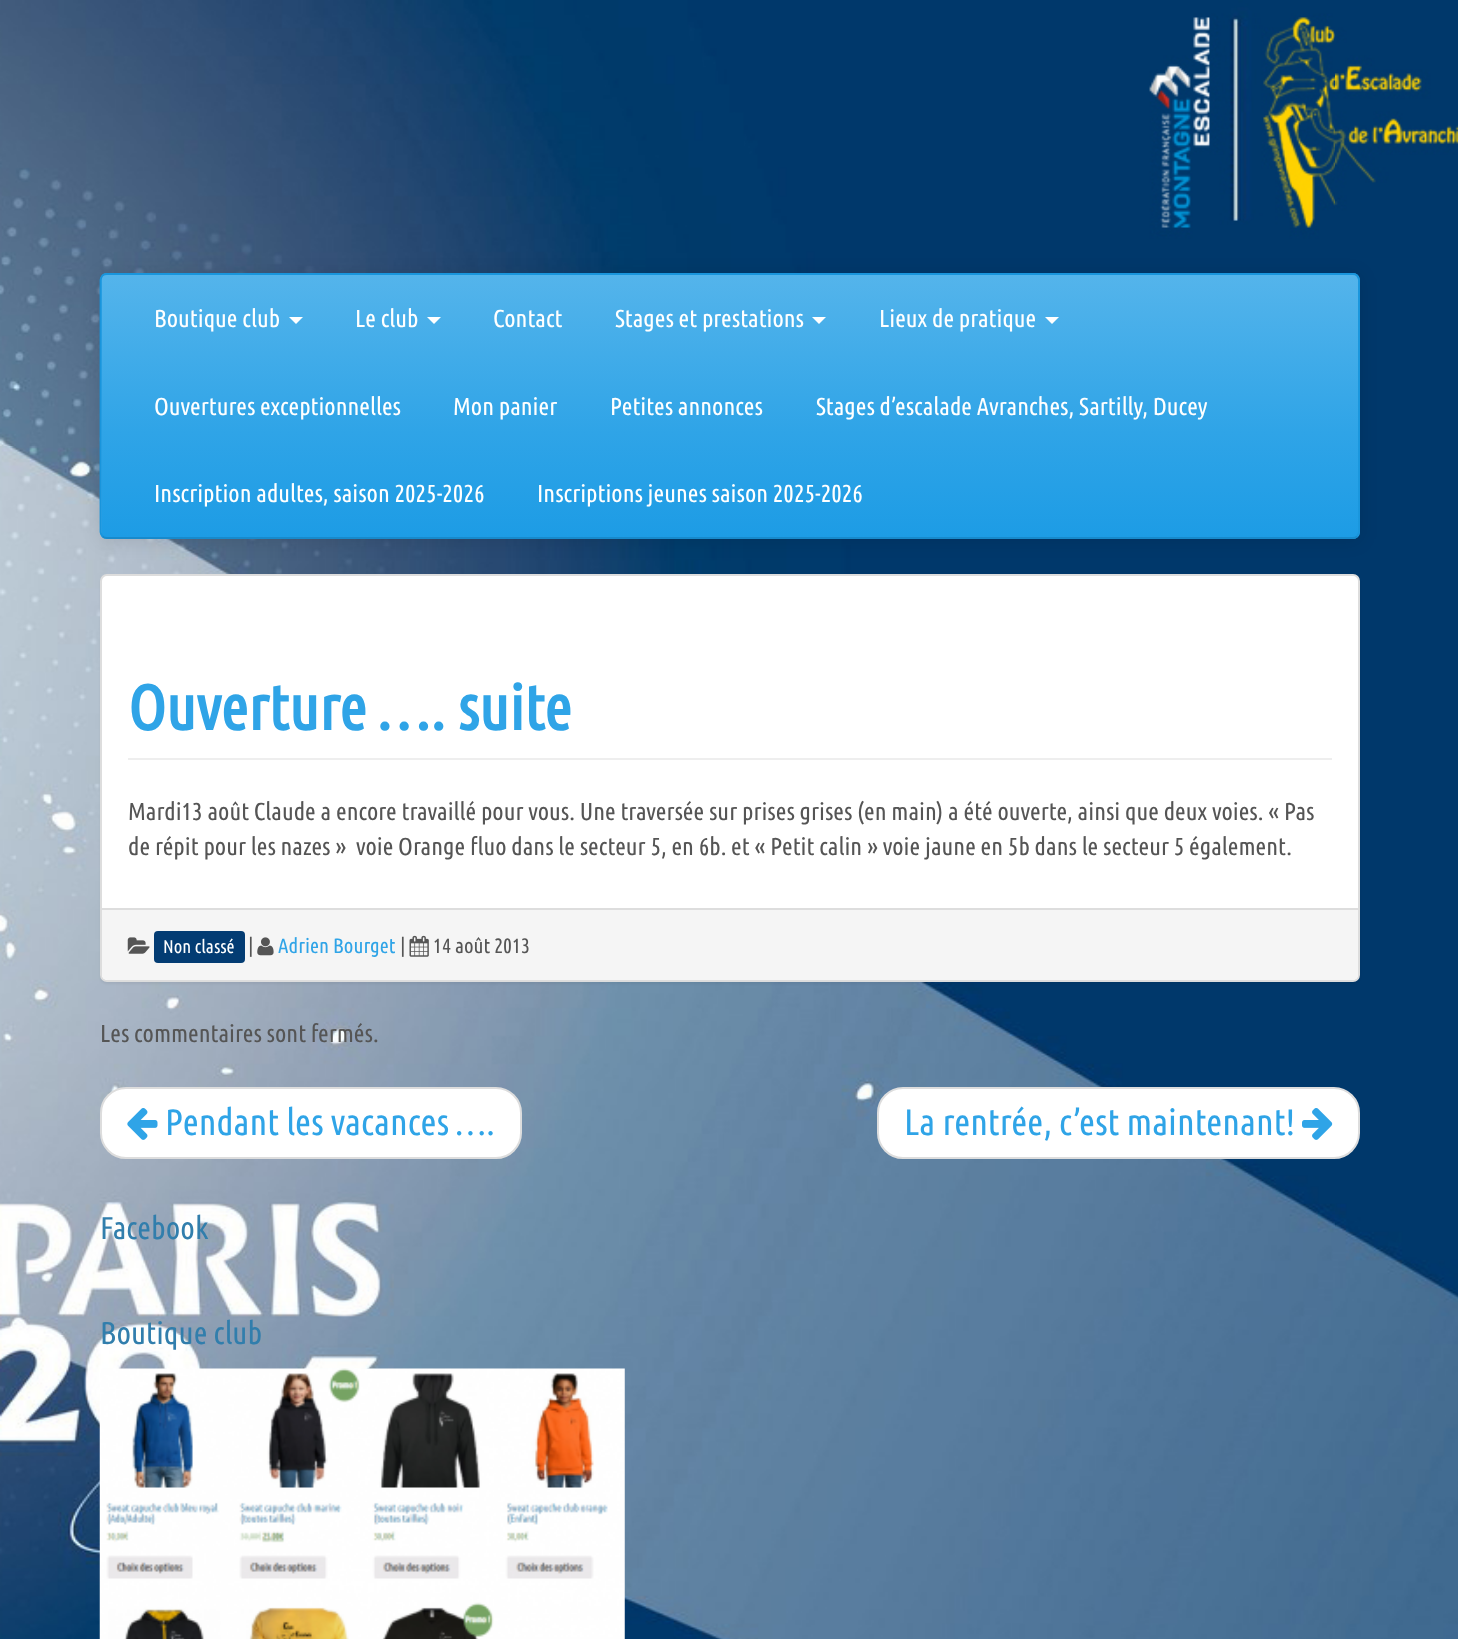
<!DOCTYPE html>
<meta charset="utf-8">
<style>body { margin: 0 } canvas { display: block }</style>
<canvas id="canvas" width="1458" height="1639"></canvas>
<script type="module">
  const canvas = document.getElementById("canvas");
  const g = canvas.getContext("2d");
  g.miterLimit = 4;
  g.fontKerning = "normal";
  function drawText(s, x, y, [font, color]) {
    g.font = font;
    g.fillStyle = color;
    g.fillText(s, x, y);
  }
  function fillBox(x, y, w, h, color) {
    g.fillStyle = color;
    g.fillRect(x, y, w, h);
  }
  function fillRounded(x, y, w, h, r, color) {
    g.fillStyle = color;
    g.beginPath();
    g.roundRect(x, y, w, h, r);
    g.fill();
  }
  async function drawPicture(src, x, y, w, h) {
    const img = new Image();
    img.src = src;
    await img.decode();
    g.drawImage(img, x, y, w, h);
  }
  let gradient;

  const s1 = ["24.5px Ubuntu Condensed", "#FFFFFF"];
  const s2 = ["bold 63px Ubuntu Condensed", "#2FA4E7"];
  const s3 = ["24.5px Ubuntu Condensed", "#555555"];
  const s4 = ["18.5px Ubuntu Condensed", "#FFFFFF"];
  const s5 = ["20.75px Ubuntu Condensed", "#555555"];
  const s6 = ["20.75px Ubuntu Condensed", "#2FA4E7"];
  const s7 = ["36.75px Ubuntu Condensed", "#2FA4E7"];
  const s8 = ["31.5px Ubuntu Condensed", "#317EAC"];

  fillBox(0, 0, 1458, 1639, "#FFFFFF");
  await drawPicture("pic1.png", 0, 0, 1458, 1639);
  g.fillStyle = "rgba(0, 0, 0, 0.1)";
  g.filter = "blur(9px)";
  g.beginPath();
  g.roundRect(100, 275, 1260, 266, 7);
  g.fill();
  g.filter = "none";
  fillRounded(100, 273, 1260, 266, 7, "#2FA4E7");
  gradient = g.createLinearGradient(730, 275, 730, 537);
  gradient.addColorStop(0, "#54B4EB");
  gradient.addColorStop(0.6, "#2FA4E7");
  gradient.addColorStop(1, "#1D9CE5");
  g.fillStyle = gradient;
  g.fillRect(102, 275, 1256, 262);
  g.beginPath();
  g.moveTo(1357, 536.5);
  g.bezierCurveTo(1356, 537.5, 1354.5, 538, 1353, 538);
  g.lineTo(107, 538);
  g.bezierCurveTo(105, 538, 103.5, 537.5, 102.5, 536.5);
  g.strokeStyle = "#178ACC";
  g.lineWidth = 1.8;
  g.stroke();
  g.beginPath();
  g.moveTo(102.5, 536.5);
  g.bezierCurveTo(101.5, 535, 100.5, 533.5, 100.5, 532);
  g.lineTo(100.5, 280);
  g.bezierCurveTo(100.5, 278.5, 101.5, 277, 102.5, 275.5);
  g.bezierCurveTo(103.5, 274.5, 105, 274, 107, 274);
  g.lineTo(1353, 274);
  g.bezierCurveTo(1354.5, 274, 1356, 274.5, 1357, 275.5);
  g.bezierCurveTo(1358, 277, 1359, 278.5, 1359, 280);
  g.lineTo(1359, 532);
  g.bezierCurveTo(1359, 533.5, 1358, 535, 1357, 536.5);
  g.strokeStyle = "#1995DC";
  g.stroke();
  drawText("Boutique club", 154, 327, s1);
  g.beginPath();
  g.moveTo(289, 317);
  g.lineTo(303, 317);
  g.lineTo(296, 324);
  g.closePath();
  g.fill();
  drawText("Le club", 355, 327, s1);
  g.beginPath();
  g.moveTo(427, 317);
  g.lineTo(441, 317);
  g.lineTo(434, 324);
  g.closePath();
  g.fill();
  drawText("Contact", 493, 327, s1);
  drawText("Stages et prestations", 615, 327, s1);
  g.beginPath();
  g.moveTo(812, 317);
  g.lineTo(826, 317);
  g.lineTo(819, 324);
  g.closePath();
  g.fill();
  drawText("Lieux de pratique", 879, 327, s1);
  g.beginPath();
  g.moveTo(1045, 317);
  g.lineTo(1059, 317);
  g.lineTo(1052, 324);
  g.closePath();
  g.fill();
  drawText("Ouvertures exceptionnelles", 154, 415, s1);
  drawText("Mon panier", 453, 415, s1);
  drawText("Petites annonces", 610, 415, s1);
  drawText("Stages d’escalade Avranches, Sartilly, Ducey", 816, 415, s1);
  drawText("Inscription adultes, saison 2025-2026", 154, 502, s1);
  drawText("Inscriptions jeunes saison 2025-2026", 537, 502, s1);
  g.fillStyle = "rgba(0, 0, 0, 0.05)";
  g.filter = "blur(1px)";
  g.beginPath();
  g.roundRect(100, 576, 1260, 408, 7);
  g.fill();
  g.filter = "none";
  g.fillStyle = "#FFFFFF";
  g.beginPath();
  g.roundRect(101, 575, 1258, 406, 6);
  g.fill();
  g.strokeStyle = "#DDDDDD";
  g.lineWidth = 2;
  g.stroke();
  fillBox(128, 758, 1204, 2, "#EEEEEE");
  drawText("Ouverture …. suite", 128, 730, s2);
  drawText("Mardi13 août Claude a encore travaillé pour vous. Une traversée sur prises grises (en main) a été ouverte, ainsi que deux voies. « Pas", 128, 820, s3);
  drawText("de répit pour les nazes »  voie Orange fluo dans le secteur 5, en 6b. et « Petit calin » voie jaune en 5b dans le secteur 5 également.", 128, 855, s3);
  g.fillStyle = "#F5F5F5";
  g.beginPath();
  g.roundRect(102, 908, 1256, 72, [0, 0, 5, 5]);
  g.fill();
  fillBox(102, 908, 1256, 2, "#DDDDDD");
  await drawPicture("pic2.png", 127, 937, 23, 17);
  fillRounded(154, 931, 91, 32, 4, "#033C73");
  drawText("Non classé", 163, 953, s4);
  drawText("|", 248, 953, s5);
  await drawPicture("pic3.png", 257, 937, 17, 19);
  drawText("Adrien Bourget", 278, 953, s6);
  drawText("|", 400, 953, s5);
  await drawPicture("pic4.png", 409, 935, 20, 22);
  drawText("14 août 2013", 433, 953, s5);
  drawText("Les commentaires sont fermés.", 100, 1042, s3);
  g.fillStyle = "#FFFFFF";
  g.beginPath();
  g.roundRect(101, 1088, 420, 70, 25);
  g.fill();
  g.stroke();
  await drawPicture("pic5.png", 127, 1108, 31, 32);
  drawText("Pendant les vacances ….", 165, 1135, s7);
  g.fillStyle = "#FFFFFF";
  g.beginPath();
  g.roundRect(878, 1088, 481, 70, 25);
  g.fill();
  g.stroke();
  drawText("La rentrée, c’est maintenant!", 904, 1135, s7);
  await drawPicture("pic6.png", 1302, 1108, 31, 32);
  drawText("Facebook", 100, 1239, s8);
  drawText("Boutique club", 100, 1344, s8);
  await drawPicture("pic7.png", 99, 1368, 526, 271);
</script>
